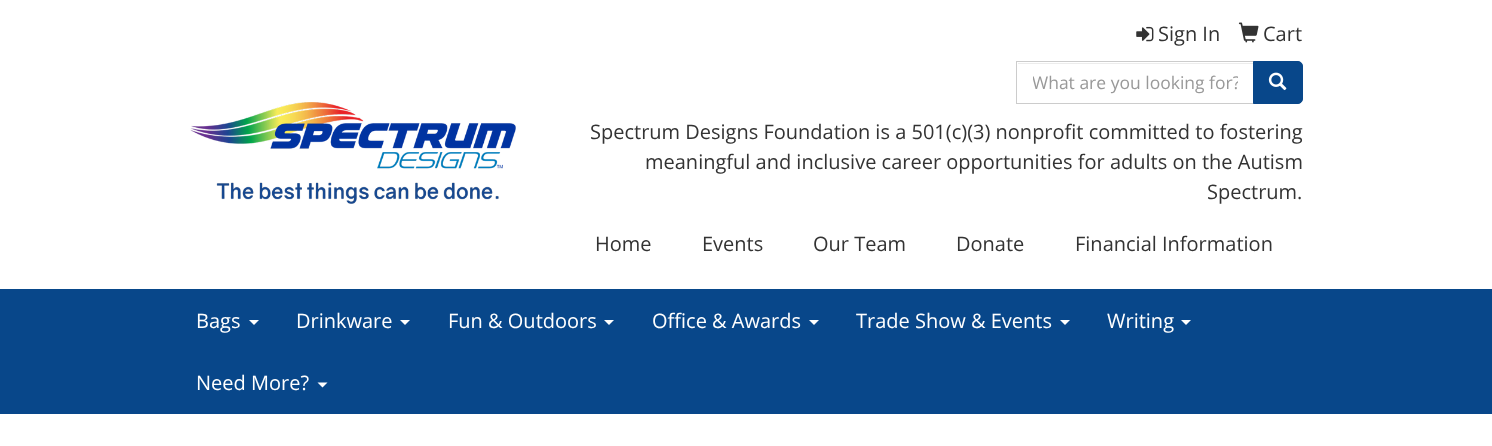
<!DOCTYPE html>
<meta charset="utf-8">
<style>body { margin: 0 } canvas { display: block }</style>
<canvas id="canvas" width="1492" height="446"></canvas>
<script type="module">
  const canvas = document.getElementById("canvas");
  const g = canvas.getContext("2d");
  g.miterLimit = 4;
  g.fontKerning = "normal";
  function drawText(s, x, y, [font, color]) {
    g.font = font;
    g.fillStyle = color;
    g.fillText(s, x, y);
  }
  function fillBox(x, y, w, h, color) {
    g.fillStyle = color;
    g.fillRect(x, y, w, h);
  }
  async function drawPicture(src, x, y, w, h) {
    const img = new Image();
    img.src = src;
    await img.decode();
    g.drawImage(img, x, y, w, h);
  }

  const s1 = ["20px Open Sans", "#333333"];
  const s2 = ["17.5px Open Sans", "#999999"];
  const s3 = ["20px Open Sans", "#FFFFFF"];

  fillBox(0, 0, 1492, 446, "#FFFFFF");
  await drawPicture("pic1.png", 1136, 26, 18, 16);
  drawText("Sign In", 1158, 41, s1);
  await drawPicture("pic2.png", 1238, 22, 21, 21);
  drawText("Cart", 1263, 41, s1);
  await drawPicture("pic3.png", 190, 102, 326, 102);
  fillBox(1018, 63, 235, 1, "#ECECEC");
  g.strokeStyle = "#CCCCCC";
  g.strokeRect(1016.5, 61.5, 237, 42);
  g.save();
  g.beginPath();
  g.rect(1033, 71, 205, 24);
  g.clip();
  drawText("What are you looking for?", 1032, 89, s2);
  g.restore();
  g.fillStyle = "#08478A";
  g.beginPath();
  g.roundRect(1253.5, 61.5, 49, 42, [0, 4.5, 4.5, 0]);
  g.fill();
  g.strokeStyle = "#08478A";
  g.stroke();
  await drawPicture("pic4.png", 1268, 72, 19, 19);
  drawText("Spectrum Designs Foundation is a 501(c)(3) nonprofit committed to fostering", 590, 139, s1);
  drawText("meaningful and inclusive career opportunities for adults on the Autism", 645, 169, s1);
  drawText("Spectrum.", 1207, 199, s1);
  drawText("Home", 595, 251, s1);
  drawText("Events", 702, 251, s1);
  drawText("Our Team", 813, 251, s1);
  drawText("Donate", 956, 251, s1);
  drawText("Financial Information", 1075, 251, s1);
  fillBox(0, 289, 1492, 125, "#08478A");
  drawText("Bags", 196, 328, s3);
  g.beginPath();
  g.moveTo(249, 320);
  g.lineTo(259, 320);
  g.lineTo(254, 325);
  g.closePath();
  g.fill();
  drawText("Drinkware", 296, 328, s3);
  g.beginPath();
  g.moveTo(400, 320);
  g.lineTo(410, 320);
  g.lineTo(405, 325);
  g.closePath();
  g.fill();
  drawText("Fun & Outdoors", 448, 328, s3);
  g.beginPath();
  g.moveTo(604, 320);
  g.lineTo(614, 320);
  g.lineTo(609, 325);
  g.closePath();
  g.fill();
  drawText("Office & Awards", 652, 328, s3);
  g.beginPath();
  g.moveTo(809, 320);
  g.lineTo(819, 320);
  g.lineTo(814, 325);
  g.closePath();
  g.fill();
  drawText("Trade Show & Events", 856, 328, s3);
  g.beginPath();
  g.moveTo(1060, 320);
  g.lineTo(1070, 320);
  g.lineTo(1065, 325);
  g.closePath();
  g.fill();
  drawText("Writing", 1107, 328, s3);
  g.beginPath();
  g.moveTo(1181, 320);
  g.lineTo(1191, 320);
  g.lineTo(1186, 325);
  g.closePath();
  g.fill();
  drawText("Need More?", 196, 390, s3);
  g.beginPath();
  g.moveTo(317.5, 382.5);
  g.lineTo(327.5, 382.5);
  g.lineTo(322.5, 387.5);
  g.closePath();
  g.fill();
</script>
